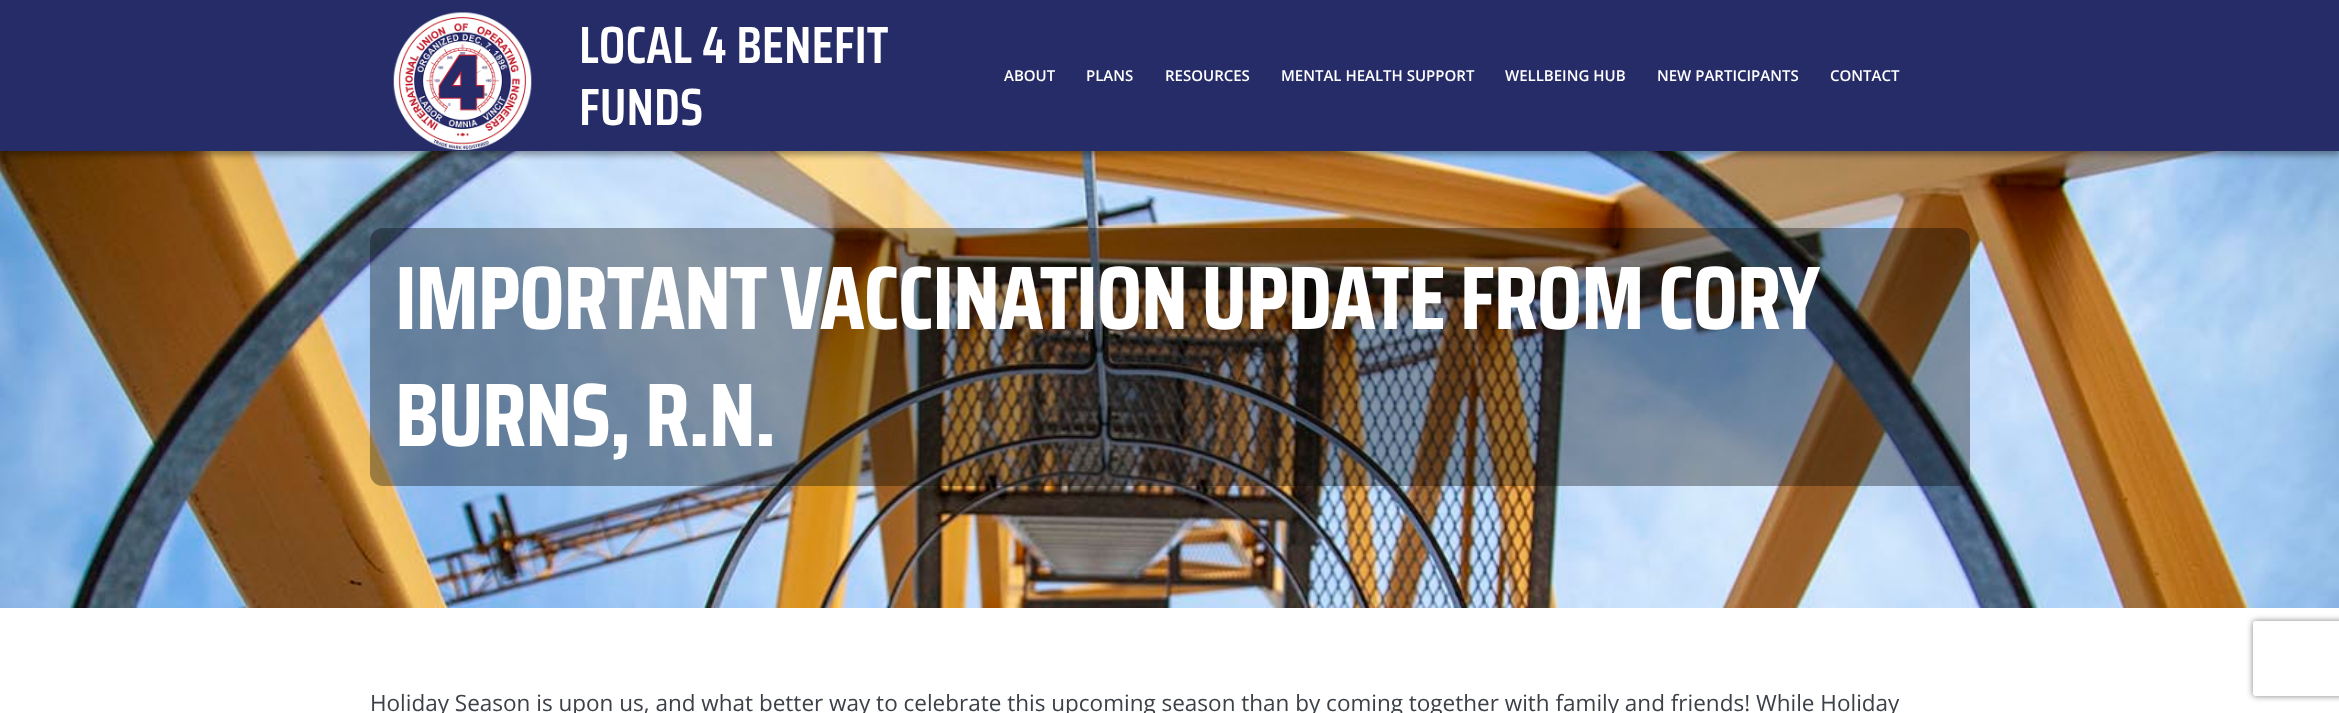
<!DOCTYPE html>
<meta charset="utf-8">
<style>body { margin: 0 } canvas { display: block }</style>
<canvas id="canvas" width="2339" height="713"></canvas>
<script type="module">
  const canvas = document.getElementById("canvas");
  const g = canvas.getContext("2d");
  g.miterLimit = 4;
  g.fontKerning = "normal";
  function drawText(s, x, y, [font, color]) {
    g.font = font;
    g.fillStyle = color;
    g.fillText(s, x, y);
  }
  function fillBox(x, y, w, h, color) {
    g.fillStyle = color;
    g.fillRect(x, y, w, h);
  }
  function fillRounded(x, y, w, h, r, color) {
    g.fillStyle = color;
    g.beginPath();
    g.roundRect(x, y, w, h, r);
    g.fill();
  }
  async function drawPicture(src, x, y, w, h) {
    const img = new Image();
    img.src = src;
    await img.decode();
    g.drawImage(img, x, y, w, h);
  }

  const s1 = ["600 52.5px Saira Condensed", "#FFFFFF"];
  const s2 = ["600 15px Open Sans", "#FFFFFF"];
  const s3 = ["bold 90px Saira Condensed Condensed", "#FFFFFF"];
  const s4 = ["22.5px Open Sans", "#3C4047"];

  fillBox(0, 0, 2339, 713, "#FFFFFF");
  await drawPicture("pic2.png", 0, 151, 2339, 457);
  g.fillStyle = "rgba(0, 0, 0, 0.35)";
  g.filter = "blur(3px)";
  g.beginPath();
  g.rect(0, 4, 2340, 151);
  g.fill();
  g.filter = "none";
  fillBox(0, 0, 2339, 151, "#262C67");
  await drawPicture("pic1.png", 393, 12, 139, 138);
  drawText("LOCAL 4 BENEFIT", 579, 63, s1);
  drawText("FUNDS", 579, 125, s1);
  drawText("ABOUT", 1004, 81, s2);
  drawText("PLANS", 1086, 81, s2);
  drawText("RESOURCES", 1165, 81, s2);
  drawText("MENTAL HEALTH SUPPORT", 1281, 81, s2);
  drawText("WELLBEING HUB", 1505, 81, s2);
  drawText("NEW PARTICIPANTS", 1657, 81, s2);
  drawText("CONTACT", 1830, 81, s2);
  fillRounded(370, 228, 1600, 258, 13, "rgba(0, 0, 0, 0.35)");
  g.letterSpacing = "-1.25px";
  drawText("IMPORTANT VACCINATION UPDATE FROM CORY", 395, 329, s3);
  drawText("BURNS, R.N.", 395, 446, s3);
  g.letterSpacing = "0px";
  drawText("Holiday Season is upon us, and what better way to celebrate this upcoming season than by coming together with family and friends! While Holiday", 370, 711, s4);
  g.save();
  g.beginPath();
  g.moveTo(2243, 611);
  g.lineTo(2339, 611);
  g.lineTo(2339, 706);
  g.lineTo(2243, 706);
  g.closePath();
  g.moveTo(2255.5, 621);
  g.lineTo(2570.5, 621);
  g.bezierCurveTo(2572, 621, 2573, 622, 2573, 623.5);
  g.lineTo(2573, 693.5);
  g.bezierCurveTo(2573, 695, 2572, 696, 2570.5, 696);
  g.lineTo(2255.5, 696);
  g.bezierCurveTo(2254, 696, 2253, 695, 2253, 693.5);
  g.lineTo(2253, 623.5);
  g.bezierCurveTo(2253, 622, 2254, 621, 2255.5, 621);
  g.closePath();
  g.clip("evenodd");
  g.fillStyle = "#808080";
  g.filter = "blur(3px)";
  g.beginPath();
  g.roundRect(2253, 621, 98, 75, 2.5);
  g.fill();
  g.filter = "none";
  g.restore();
</script>
